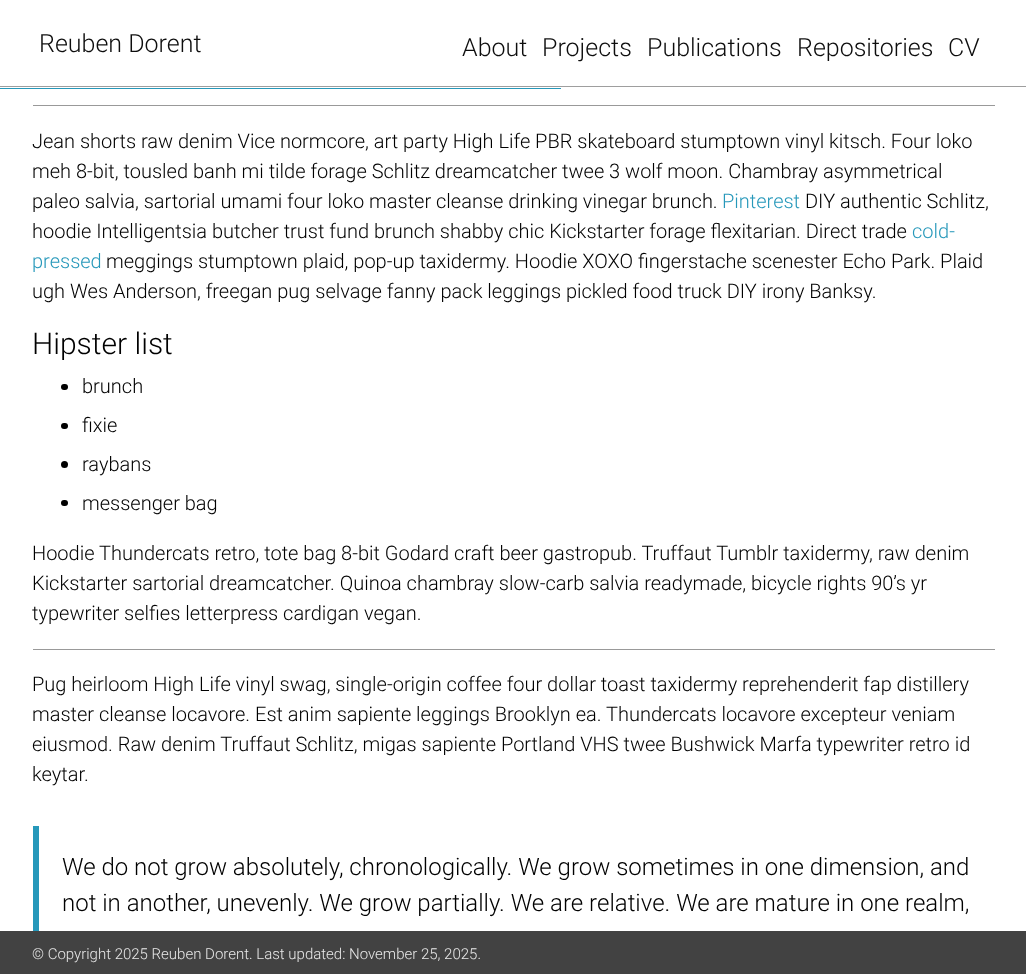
<!DOCTYPE html>
<meta charset="utf-8">
<style>body { margin: 0 } canvas { display: block }</style>
<canvas id="canvas" width="1026" height="974"></canvas>
<script type="module">
  const canvas = document.getElementById("canvas");
  const g = canvas.getContext("2d");
  g.miterLimit = 4;
  g.fontKerning = "normal";
  function drawText(s, x, y, [font, color]) {
    g.font = font;
    g.fillStyle = color;
    g.fillText(s, x, y);
  }
  function fillBox(x, y, w, h, color) {
    g.fillStyle = color;
    g.fillRect(x, y, w, h);
  }
  function fillRounded(x, y, w, h, r, color) {
    g.fillStyle = color;
    g.beginPath();
    g.roundRect(x, y, w, h, r);
    g.fill();
  }

  const s1 = ["300 25px Roboto", "#0D0D0D"];
  const s2 = ["300 20px Roboto", "#000000"];
  const s3 = ["300 20px Roboto", "#2698BA"];
  const s4 = ["300 30px Roboto", "#000000"];
  const s5 = ["300 24px Roboto", "#000000"];
  const s6 = ["300 15px Roboto", "#E8E8E8"];

  fillBox(0, 0, 1026, 974, "#FFFFFF");
  fillBox(0, 86, 1026, 1, "#9E9E9E");
  drawText("Reuben Dorent", 39, 52, s1);
  drawText("About", 462, 56, s1);
  drawText("Projects", 542, 56, s1);
  drawText("Publications", 647, 56, s1);
  drawText("Repositories", 797, 56, s1);
  drawText("CV", 948, 56, s1);
  fillBox(0, 88, 561, 1, "#2698BA");
  fillBox(33, 105, 962, 1, "#999999");
  drawText("Jean shorts raw denim Vice normcore, art party High Life PBR skateboard stumptown vinyl kitsch. Four loko", 32, 148, s2);
  drawText("meh 8-bit, tousled banh mi tilde forage Schlitz dreamcatcher twee 3 wolf moon. Chambray asymmetrical", 32, 178, s2);
  drawText("paleo salvia, sartorial umami four loko master cleanse drinking vinegar brunch.", 32, 208, s2);
  drawText("Pinterest", 722, 208, s3);
  drawText("DIY authentic Schlitz,", 805, 208, s2);
  drawText("hoodie Intelligentsia butcher trust fund brunch shabby chic Kickstarter forage flexitarian. Direct trade", 32, 238, s2);
  drawText("cold-", 912, 238, s3);
  drawText("pressed", 32, 268, s3);
  drawText("meggings stumptown plaid, pop-up taxidermy. Hoodie XOXO fingerstache scenester Echo Park. Plaid", 106, 268, s2);
  drawText("ugh Wes Anderson, freegan pug selvage fanny pack leggings pickled food truck DIY irony Banksy.", 32, 298, s2);
  drawText("Hipster list", 32, 354, s4);
  fillRounded(61, 384, 7, 6, 3, "#000000");
  drawText("brunch", 82, 393, s2);
  fillRounded(61, 423, 7, 6, 3, "#000000");
  drawText("fixie", 82, 432, s2);
  g.beginPath();
  g.arc(64.5, 464.5, 3.5, 0, Math.PI * 2);
  g.fill();
  drawText("raybans", 82, 471, s2);
  fillRounded(61, 500, 7, 6, 3, "#000000");
  drawText("messenger bag", 82, 510, s2);
  drawText("Hoodie Thundercats retro, tote bag 8-bit Godard craft beer gastropub. Truffaut Tumblr taxidermy, raw denim", 32, 560, s2);
  drawText("Kickstarter sartorial dreamcatcher. Quinoa chambray slow-carb salvia readymade, bicycle rights 90’s yr", 32, 590, s2);
  drawText("typewriter selfies letterpress cardigan vegan.", 32, 620, s2);
  fillBox(33, 649, 962, 1, "#999999");
  drawText("Pug heirloom High Life vinyl swag, single-origin coffee four dollar toast taxidermy reprehenderit fap distillery", 32, 691, s2);
  drawText("master cleanse locavore. Est anim sapiente leggings Brooklyn ea. Thundercats locavore excepteur veniam", 32, 721, s2);
  drawText("eiusmod. Raw denim Truffaut Schlitz, migas sapiente Portland VHS twee Bushwick Marfa typewriter retro id", 32, 751, s2);
  drawText("keytar.", 32, 781, s2);
  fillBox(33, 826, 6, 105, "#2698BA");
  drawText("We do not grow absolutely, chronologically. We grow sometimes in one dimension, and", 62, 875, s5);
  drawText("not in another, unevenly. We grow partially. We are relative. We are mature in one realm,", 62, 911, s5);
  fillBox(0, 931, 1026, 43, "#424242");
  drawText("© Copyright 2025 Reuben Dorent. Last updated: November 25, 2025.", 32, 959, s6);
</script>
